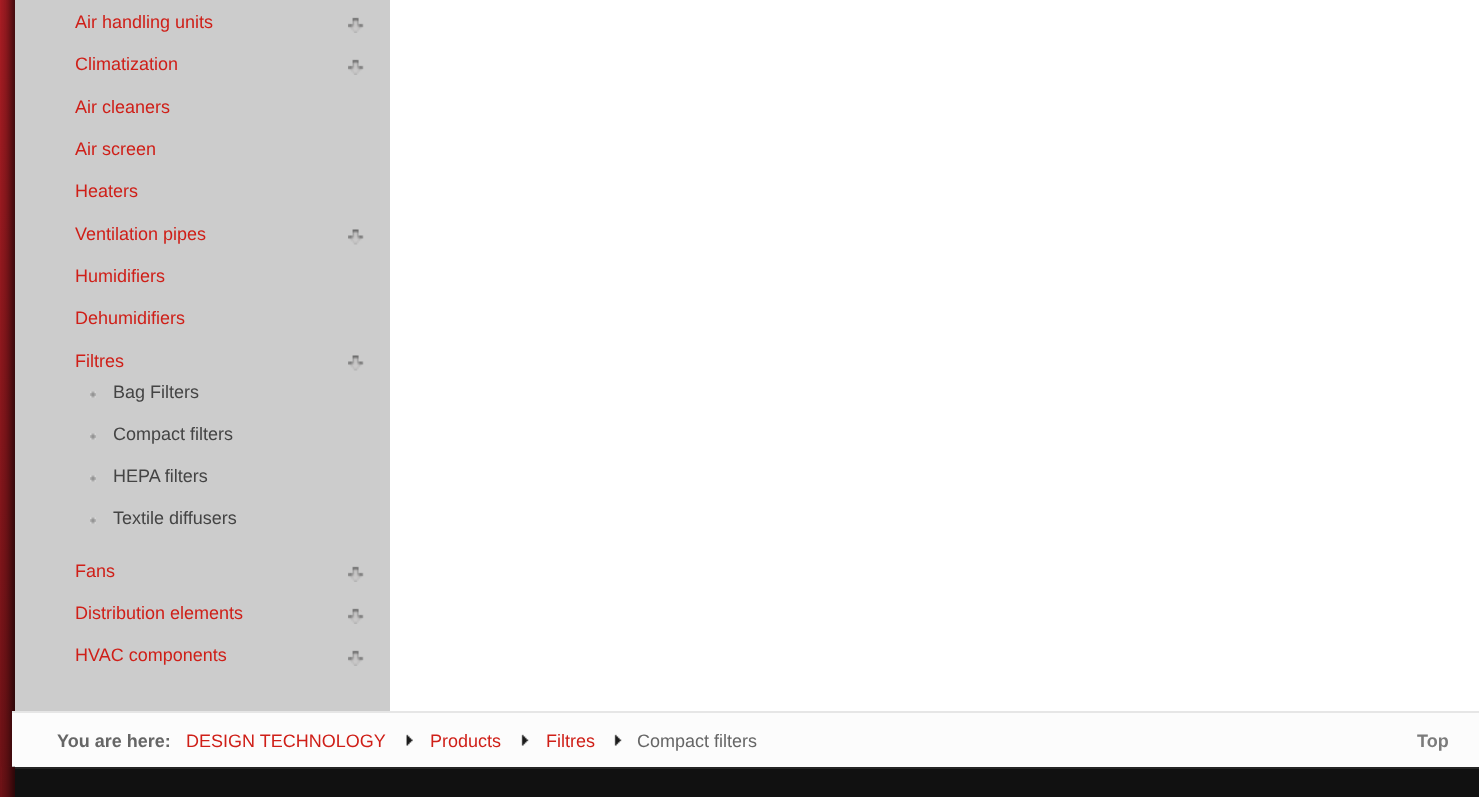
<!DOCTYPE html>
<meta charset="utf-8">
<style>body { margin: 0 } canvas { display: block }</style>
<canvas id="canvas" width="1479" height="797"></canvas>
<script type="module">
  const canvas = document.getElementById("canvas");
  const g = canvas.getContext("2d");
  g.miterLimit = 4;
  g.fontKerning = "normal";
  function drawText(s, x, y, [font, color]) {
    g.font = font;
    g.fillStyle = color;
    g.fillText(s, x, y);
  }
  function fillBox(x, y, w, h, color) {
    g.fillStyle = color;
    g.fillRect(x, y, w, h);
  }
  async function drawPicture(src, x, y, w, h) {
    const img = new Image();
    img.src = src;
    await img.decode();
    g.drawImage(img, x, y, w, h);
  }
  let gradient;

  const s1 = ["18px Liberation Sans", "#CF1F18"];
  const s2 = ["18px Liberation Sans", "#444444"];
  const s3 = ["bold 18px Liberation Sans", "#666666"];
  const s4 = ["18px Liberation Sans", "#666666"];
  const s5 = ["bold 18px Liberation Sans", "#7B7B7B"];

  fillBox(0, 0, 1479, 797, "#FFFFFF");
  gradient = g.createLinearGradient(740, 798, 740, -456);
  gradient.addColorStop(0, "#6D1216");
  gradient.addColorStop(1, "#C9232B");
  g.fillStyle = gradient;
  g.fillRect(0, 0, 15, 797);
  await drawPicture("pic1.png", 1, 0, 14, 711);
  fillBox(15, 0, 375, 711, "#CCCCCC");
  drawText("Air handling units", 75, 28, s1);
  await drawPicture("pic2.png", 348, 17, 16, 16);
  drawText("Climatization", 75, 70, s1);
  await drawPicture("pic2.png", 348, 59, 16, 16);
  drawText("Air cleaners", 75, 113, s1);
  drawText("Air screen", 75, 155, s1);
  drawText("Heaters", 75, 197, s1);
  drawText("Ventilation pipes", 75, 240, s1);
  await drawPicture("pic3.png", 348, 229, 16, 16);
  drawText("Humidifiers", 75, 282, s1);
  drawText("Dehumidifiers", 75, 324, s1);
  drawText("Filtres", 75, 367, s1);
  await drawPicture("pic3.png", 348, 355, 16, 16);
  await drawPicture("pic4.png", 90, 391, 6, 7);
  drawText("Bag Filters", 113, 398, s2);
  await drawPicture("pic4.png", 90, 433, 6, 7);
  drawText("Compact filters", 113, 440, s2);
  await drawPicture("pic4.png", 90, 475, 6, 7);
  drawText("HEPA filters", 113, 482, s2);
  await drawPicture("pic4.png", 90, 517, 6, 7);
  drawText("Textile diffusers", 113, 524, s2);
  drawText("Fans", 75, 577, s1);
  await drawPicture("pic2.png", 348, 566, 16, 16);
  drawText("Distribution elements", 75, 619, s1);
  await drawPicture("pic2.png", 348, 608, 16, 16);
  drawText("HVAC components", 75, 661, s1);
  await drawPicture("pic2.png", 348, 650, 16, 16);
  await drawPicture("pic5.png", 1, 711, 11, 56);
  fillBox(12, 713, 1467, 54, "#FCFCFC");
  fillBox(12, 711, 1467, 2, "#E6E6E6");
  drawText("You are here:", 57, 747, s3);
  drawText("DESIGN TECHNOLOGY", 186, 747, s1);
  await drawPicture("pic6.png", 406, 734, 7, 12);
  drawText("Products", 430, 747, s1);
  await drawPicture("pic7.png", 521, 734, 8, 12);
  drawText("Filtres", 546, 747, s1);
  await drawPicture("pic8.png", 614, 734, 8, 12);
  drawText("Compact filters", 637, 747, s4);
  drawText("Top", 1417, 747, s5);
  await drawPicture("pic9.png", 2, 766, 13, 31);
  fillBox(15, 769, 1464, 28, "#111111");
  fillBox(15, 767, 1464, 2, "#252525");
</script>
